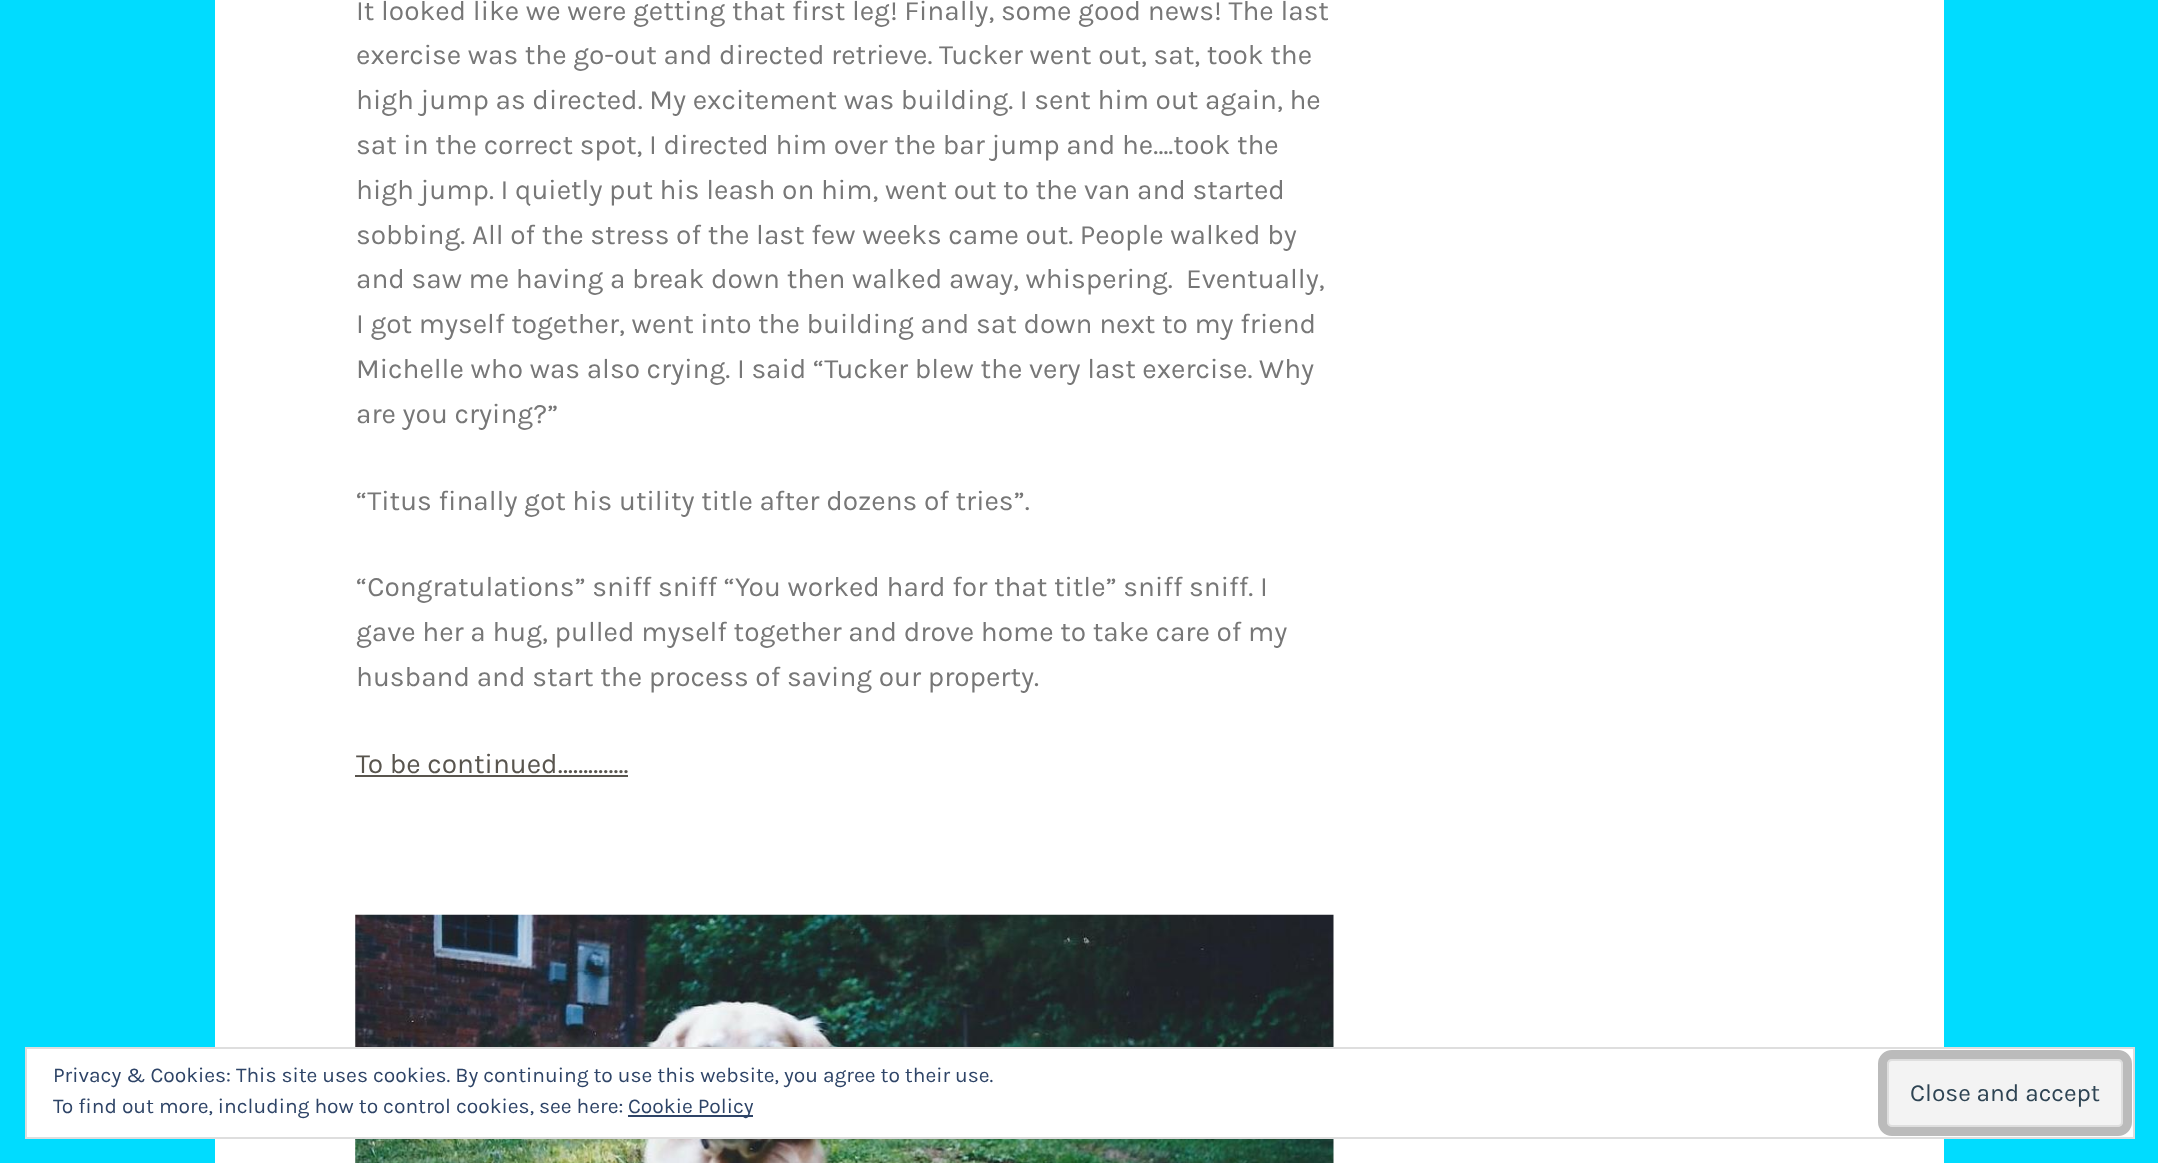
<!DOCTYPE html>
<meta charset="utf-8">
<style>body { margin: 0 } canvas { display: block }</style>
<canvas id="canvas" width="2158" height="1163"></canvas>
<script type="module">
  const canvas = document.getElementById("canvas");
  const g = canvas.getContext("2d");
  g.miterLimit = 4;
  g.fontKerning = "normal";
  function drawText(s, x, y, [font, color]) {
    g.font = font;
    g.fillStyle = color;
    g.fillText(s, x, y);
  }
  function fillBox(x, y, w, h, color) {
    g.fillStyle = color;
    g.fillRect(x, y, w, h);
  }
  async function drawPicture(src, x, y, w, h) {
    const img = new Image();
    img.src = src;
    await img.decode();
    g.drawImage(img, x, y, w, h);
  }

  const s1 = ["28px Karla", "#777777"];
  const s2 = ["28px Karla", "#59554E"];
  const s3 = ["21px Karla", "#2E4467"];
  const s4 = ["24.5px Karla", "#2E4453"];

  fillBox(0, 0, 2158, 1163, "#00DCFF");
  fillBox(215, 0, 1729, 1163, "#FFFFFF");
  drawText("It looked like we were getting that first leg! Finally, some good news! The last", 356, 20, s1);
  drawText("exercise was the go-out and directed retrieve. Tucker went out, sat, took the", 356, 64, s1);
  drawText("high jump as directed. My excitement was building. I sent him out again, he", 356, 109, s1);
  drawText("sat in the correct spot, I directed him over the bar jump and he….took the", 356, 154, s1);
  drawText("high jump. I quietly put his leash on him, went out to the van and started", 356, 199, s1);
  drawText("sobbing. All of the stress of the last few weeks came out. People walked by", 356, 244, s1);
  drawText("and saw me having a break down then walked away, whispering.  Eventually,", 356, 288, s1);
  drawText("I got myself together, went into the building and sat down next to my friend", 356, 333, s1);
  drawText("Michelle who was also crying. I said “Tucker blew the very last exercise. Why", 356, 378, s1);
  drawText("are you crying?”", 356, 423, s1);
  drawText("“Titus finally got his utility title after dozens of tries”.", 356, 510, s1);
  drawText("“Congratulations” sniff sniff “You worked hard for that title” sniff sniff. I", 356, 596, s1);
  drawText("gave her a hug, pulled myself together and drove home to take care of my", 356, 641, s1);
  drawText("husband and start the process of saving our property.", 356, 686, s1);
  drawText("To be continued…………..", 356, 773, s2);
  fillBox(355, 775, 273, 2, "#59554E");
  await drawPicture("pic1.png", 355, 914, 979, 249);
  g.fillStyle = "#FFFFFF";
  g.beginPath();
  g.rect(26, 1048, 2108, 90);
  g.fill();
  g.strokeStyle = "#DEDEDE";
  g.lineWidth = 2;
  g.stroke();
  drawText("Privacy & Cookies: This site uses cookies. By continuing to use this website, you agree to their use.", 53, 1082, s3);
  drawText("To find out more, including how to control cookies, see here:", 53, 1113, s3);
  fillBox(628, 1115, 125, 2, "#2E4467");
  drawText("Cookie Policy", 628, 1113, s3);
  g.fillStyle = "#F3F3F3";
  g.beginPath();
  g.roundRect(1888, 1060, 234, 66, 4);
  g.fill();
  g.stroke();
  g.beginPath();
  g.roundRect(1882.5, 1054.5, 245, 77, 9.5);
  g.strokeStyle = "#BBBBBB";
  g.lineWidth = 9;
  g.stroke();
  drawText("Close and accept", 1910, 1101, s4);
</script>
